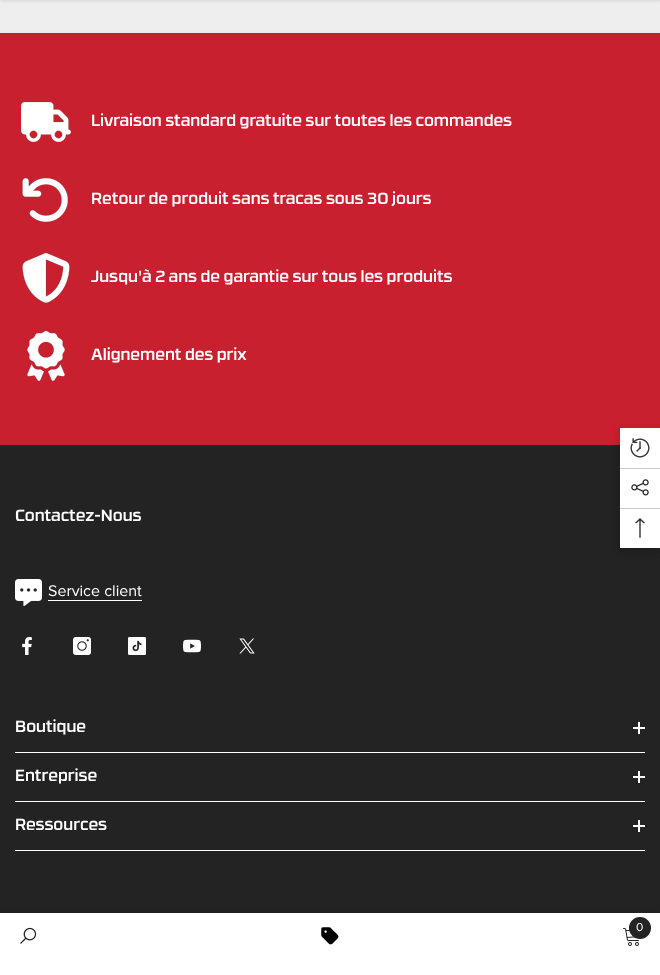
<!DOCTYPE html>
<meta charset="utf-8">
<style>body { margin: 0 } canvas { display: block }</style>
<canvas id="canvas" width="660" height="975"></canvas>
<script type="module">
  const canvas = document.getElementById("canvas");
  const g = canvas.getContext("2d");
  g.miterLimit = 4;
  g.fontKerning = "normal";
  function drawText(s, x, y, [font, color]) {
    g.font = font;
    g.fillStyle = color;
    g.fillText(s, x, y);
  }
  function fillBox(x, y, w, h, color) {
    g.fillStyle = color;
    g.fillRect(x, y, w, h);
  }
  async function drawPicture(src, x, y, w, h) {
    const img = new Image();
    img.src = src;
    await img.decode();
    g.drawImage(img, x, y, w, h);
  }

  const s1 = ["500 16px 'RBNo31'", "#FFFFFF"];
  const s2 = ["16px Proxima Nova", "#FFFFFF"];
  const s3 = ["12px Proxima Nova", "#FFFFFF"];

  fillBox(0, 0, 660, 975, "#EEEEEE");
  g.fillStyle = "rgba(0, 0, 0, 0.1)";
  g.filter = "blur(1.5px)";
  g.beginPath();
  g.rect(0, -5, 660, 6);
  g.fill();
  g.filter = "none";
  fillBox(0, 33, 660, 412, "#C8202F");
  await drawPicture("pic1.png", 21, 101, 50, 41);
  drawText("Livraison standard gratuite sur toutes les commandes", 91, 126, s1);
  await drawPicture("pic2.png", 22, 178, 46, 44);
  drawText("Retour de produit sans tracas sous 30 jours", 91, 204, s1);
  await drawPicture("pic3.png", 22, 253, 48, 50);
  drawText("Jusqu'à 2 ans de garantie sur tous les produits", 91, 282, s1);
  await drawPicture("pic4.png", 27, 331, 38, 50);
  drawText("Alignement des prix", 91, 360, s1);
  fillBox(0, 445, 660, 468, "#232323");
  drawText("Contactez-Nous", 15, 521, s1);
  await drawPicture("pic5.png", 15, 579, 27, 27);
  drawText("Service client", 48, 596, s2);
  fillBox(48, 600, 94, 1, "#FFFFFF");
  await drawPicture("pic6.png", 22, 637, 10, 18);
  await drawPicture("pic7.png", 73, 637, 18, 18);
  await drawPicture("pic8.png", 128, 637, 18, 18);
  await drawPicture("pic9.png", 183, 639, 18, 14);
  await drawPicture("pic10.png", 239, 638, 16, 16);
  fillBox(15, 752, 630, 1, "#FFFFFF");
  drawText("Boutique", 15, 732, s1);
  fillBox(638, 722, 2, 12, "#FFFFFF");
  fillBox(633, 727, 12, 2, "#FFFFFF");
  fillBox(15, 801, 630, 1, "#FFFFFF");
  drawText("Entreprise", 15, 781, s1);
  fillBox(638, 771, 2, 12, "#FFFFFF");
  fillBox(633, 776, 12, 2, "#FFFFFF");
  fillBox(15, 850, 630, 1, "#FFFFFF");
  drawText("Ressources", 15, 830, s1);
  fillBox(638, 820, 2, 12, "#FFFFFF");
  fillBox(633, 825, 12, 2, "#FFFFFF");
  g.fillStyle = "rgba(0, 0, 0, 0.12)";
  g.filter = "blur(4.5px)";
  g.beginPath();
  g.rect(0, 913, 660, 62);
  g.fill();
  g.filter = "none";
  fillBox(0, 913, 660, 62, "#FFFFFF");
  await drawPicture("pic11.png", 20, 927, 17, 17);
  await drawPicture("pic12.png", 321, 927, 18, 18);
  await drawPicture("pic13.png", 623, 928, 16, 18);
  g.fillStyle = "#232323";
  g.beginPath();
  g.arc(640, 928, 11, 0, Math.PI * 2);
  g.fill();
  drawText("0", 636, 931, s3);
  g.fillStyle = "rgba(0, 0, 0, 0.2)";
  g.filter = "blur(3.5px)";
  g.beginPath();
  g.rect(620, 431, 40, 120);
  g.fill();
  g.filter = "none";
  fillBox(620, 428, 40, 120, "#FFFFFF");
  await drawPicture("pic14.png", 630, 438, 20, 20);
  fillBox(620, 468, 40, 1, "#CCCCCC");
  await drawPicture("pic15.png", 631, 479, 18, 17);
  fillBox(620, 508, 40, 1, "#CCCCCC");
  await drawPicture("pic16.png", 635, 518, 10, 20);
</script>
